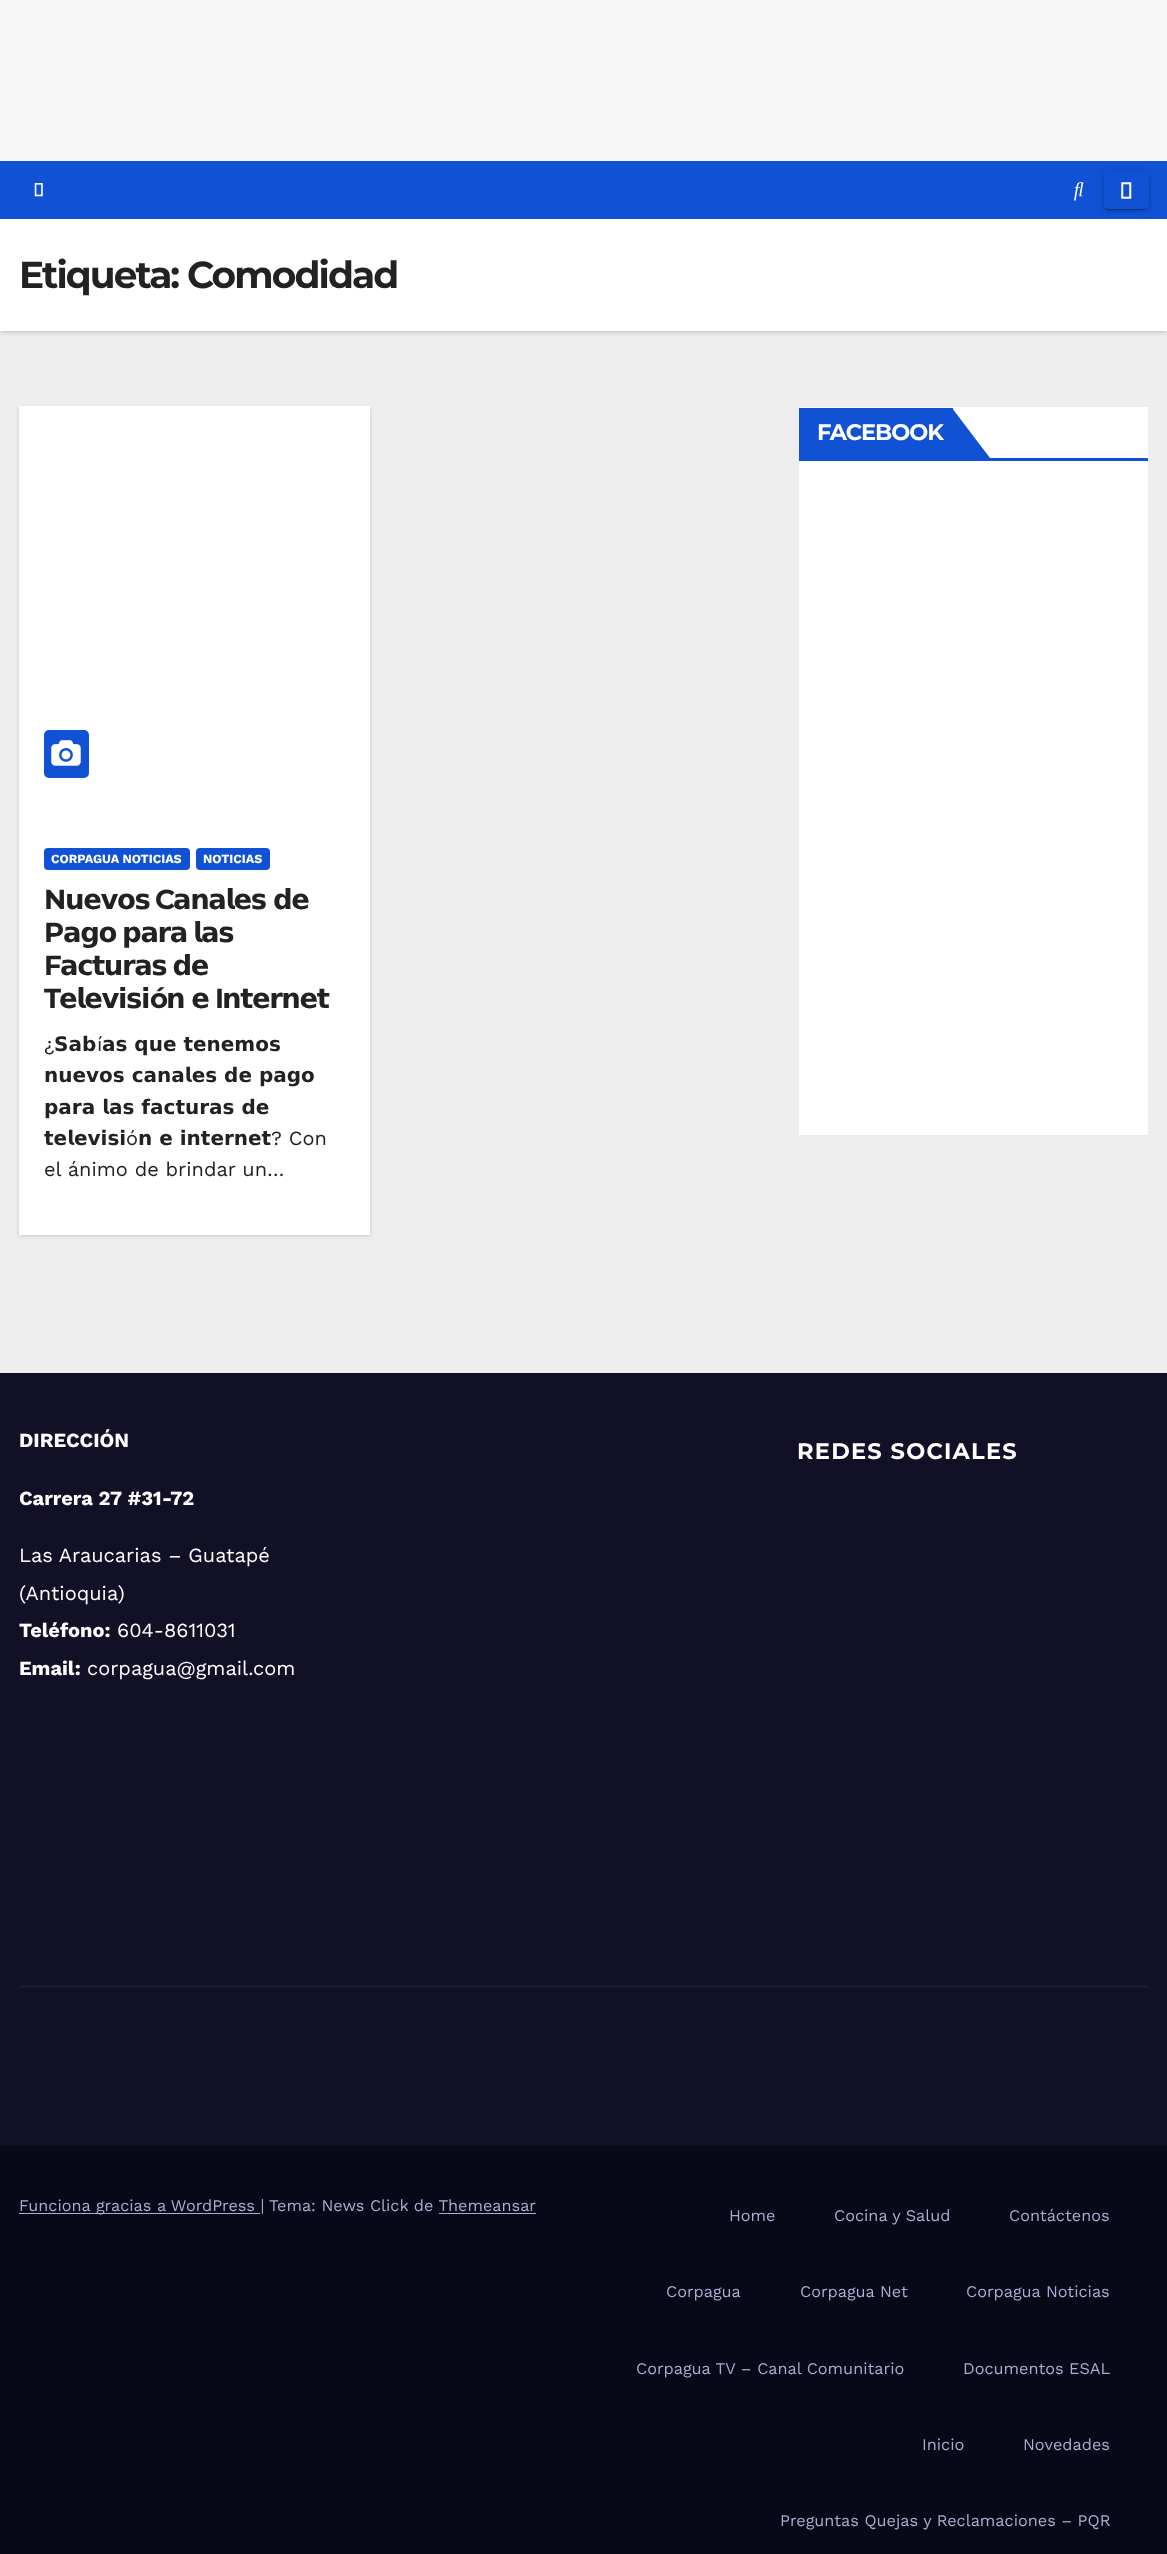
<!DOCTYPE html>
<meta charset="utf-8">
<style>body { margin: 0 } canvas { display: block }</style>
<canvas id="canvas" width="1167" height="2554"></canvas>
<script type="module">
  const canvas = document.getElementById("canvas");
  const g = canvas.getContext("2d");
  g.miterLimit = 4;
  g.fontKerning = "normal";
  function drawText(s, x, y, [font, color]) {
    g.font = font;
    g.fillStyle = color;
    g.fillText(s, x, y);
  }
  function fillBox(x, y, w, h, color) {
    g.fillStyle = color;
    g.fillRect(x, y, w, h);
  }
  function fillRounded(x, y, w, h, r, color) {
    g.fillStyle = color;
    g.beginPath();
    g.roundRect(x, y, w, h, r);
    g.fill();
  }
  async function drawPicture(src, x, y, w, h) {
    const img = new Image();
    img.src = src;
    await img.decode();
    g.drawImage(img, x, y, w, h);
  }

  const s1 = ["bold 37.5px Montserrat", "#222222"];
  const s2 = ["bold 22.5px Montserrat", "#FFFFFF"];
  const s3 = ["bold 12.5px Work Sans", "#FFFFFF"];
  const s4 = ["bold 27.5px Montserrat", "#222222"];
  const s5 = ["bold 27.5px DejaVu Sans", "#222222"];
  const s6 = ["20px Work Sans", "#222222"];
  const s7 = ["bold 20px DejaVu Sans", "#222222"];
  const s8 = ["bold 20px Work Sans", "#FFFFFF"];
  const s9 = ["20px Work Sans", "#FFFFFF"];
  const s10 = ["16.25px Work Sans", "#AAAED1"];

  fillBox(0, 0, 1167, 2554, "#EEEEEE");
  fillBox(0, 0, 1167, 161, "#F7F7F7");
  g.fillStyle = "rgba(0, 0, 0, 0.15)";
  g.filter = "blur(2px)";
  g.beginPath();
  g.rect(0, 220, 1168, 113);
  g.fill();
  g.filter = "none";
  fillBox(0, 161, 1167, 58, "#1151D3");
  await drawPicture("pic1.png", 34, 183, 9, 14);
  await drawPicture("pic2.png", 1074, 182, 10, 19);
  fillBox(0, 219, 1167, 112, "#FFFFFF");
  g.save();
  g.beginPath();
  g.moveTo(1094, 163);
  g.lineTo(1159, 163);
  g.lineTo(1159, 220);
  g.lineTo(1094, 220);
  g.closePath();
  g.moveTo(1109, 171);
  g.lineTo(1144, 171);
  g.bezierCurveTo(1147, 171, 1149, 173, 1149, 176);
  g.lineTo(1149, 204);
  g.bezierCurveTo(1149, 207, 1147, 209, 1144, 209);
  g.lineTo(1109, 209);
  g.bezierCurveTo(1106, 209, 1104, 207, 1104, 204);
  g.lineTo(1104, 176);
  g.bezierCurveTo(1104, 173, 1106, 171, 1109, 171);
  g.closePath();
  g.clip("evenodd");
  g.fillStyle = "rgba(0, 0, 0, 0.12)";
  g.filter = "blur(3px)";
  g.beginPath();
  g.roundRect(1104, 173, 45, 37, 5);
  g.fill();
  g.filter = "none";
  g.restore();
  g.save();
  g.beginPath();
  g.moveTo(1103, 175);
  g.lineTo(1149, 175);
  g.lineTo(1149, 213);
  g.lineTo(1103, 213);
  g.closePath();
  g.moveTo(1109, 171);
  g.lineTo(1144, 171);
  g.bezierCurveTo(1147, 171, 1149, 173, 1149, 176);
  g.lineTo(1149, 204);
  g.bezierCurveTo(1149, 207, 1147, 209, 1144, 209);
  g.lineTo(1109, 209);
  g.bezierCurveTo(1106, 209, 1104, 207, 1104, 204);
  g.lineTo(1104, 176);
  g.bezierCurveTo(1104, 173, 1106, 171, 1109, 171);
  g.closePath();
  g.clip("evenodd");
  g.fillStyle = "rgba(0, 0, 0, 0.2)";
  g.filter = "blur(0.5px)";
  g.beginPath();
  g.roundRect(1106, 178, 40, 32, 2.5);
  g.fill();
  g.filter = "none";
  g.restore();
  g.save();
  g.beginPath();
  g.moveTo(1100, 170);
  g.lineTo(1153, 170);
  g.lineTo(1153, 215);
  g.lineTo(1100, 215);
  g.closePath();
  g.moveTo(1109, 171);
  g.lineTo(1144, 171);
  g.bezierCurveTo(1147, 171, 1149, 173, 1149, 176);
  g.lineTo(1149, 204);
  g.bezierCurveTo(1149, 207, 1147, 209, 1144, 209);
  g.lineTo(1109, 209);
  g.bezierCurveTo(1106, 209, 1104, 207, 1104, 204);
  g.lineTo(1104, 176);
  g.bezierCurveTo(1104, 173, 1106, 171, 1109, 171);
  g.closePath();
  g.clip("evenodd");
  g.fillStyle = "rgba(0, 0, 0, 0.14)";
  g.filter = "blur(1px)";
  g.beginPath();
  g.roundRect(1104, 174, 45, 37, 5);
  g.fill();
  g.filter = "none";
  g.restore();
  await drawPicture("pic3.png", 1121, 182, 11, 17);
  g.letterSpacing = "-1.9px";
  drawText("Etiqueta: Comodidad", 19, 288, s1);
  fillBox(799, 407, 349, 728, "#FFFFFF");
  fillBox(799, 458, 349, 3, "#1151D3");
  fillBox(799, 408, 154, 50, "#1151D3");
  g.letterSpacing = "-1px";
  drawText("FACEBOOK", 817, 440, s2);
  g.fillStyle = "#1151D3";
  g.beginPath();
  g.moveTo(952, 458);
  g.lineTo(952, 408);
  g.lineTo(990, 458);
  g.closePath();
  g.fill();
  g.fillStyle = "rgba(0, 0, 0, 0.15)";
  g.filter = "blur(2px)";
  g.beginPath();
  g.rect(19, 408, 351, 828);
  g.fill();
  g.filter = "none";
  fillBox(19, 406, 351, 829, "#FFFFFF");
  fillRounded(44, 730, 45, 48, 5, "#1151D3");
  await drawPicture("pic4.png", 51, 740, 30, 26);
  fillRounded(44, 848, 146, 22, 4, "#1151D3");
  g.letterSpacing = "0px";
  drawText("CORPAGUA NOTICIAS", 51, 863, s3);
  fillRounded(196, 848, 74, 22, 4, "#1151D3");
  drawText("NOTICIAS", 203, 863, s3);
  g.letterSpacing = "-1.4px";
  drawText("N", 44, 909, s4);
  drawText("𝘂𝗲𝘃𝗼𝘀", 65, 909, s5);
  drawText("C", 155, 909, s4);
  g.wordSpacing = "-1px";
  drawText("𝗮𝗻𝗮𝗹𝗲𝘀 𝗱𝗲", 173, 909, s5);
  g.wordSpacing = "0px";
  drawText("P", 44, 942, s4);
  g.wordSpacing = "-2px";
  drawText("𝗮𝗴𝗼 𝗽𝗮𝗿𝗮 𝗹𝗮𝘀", 63, 942, s5);
  g.wordSpacing = "0px";
  drawText("F", 44, 975, s4);
  g.wordSpacing = "-2px";
  drawText("𝗮𝗰𝘁𝘂𝗿𝗮𝘀 𝗱𝗲", 60, 975, s5);
  g.save();
  g.beginPath();
  g.rect(44, 884, 301, 132);
  g.clip();
  g.wordSpacing = "0px";
  drawText("T", 44, 1008, s4);
  g.restore();
  g.wordSpacing = "0px";
  drawText("𝗲𝗹𝗲𝘃𝗶𝘀𝗶", 59, 1008, s5);
  drawText("ó", 150, 1008, s4);
  g.wordSpacing = "-1px";
  drawText("𝗻 𝗲", 166, 1008, s5);
  g.wordSpacing = "0px";
  drawText("I", 215, 1008, s4);
  drawText("𝗻𝘁𝗲𝗿𝗻𝗲𝘁", 222, 1008, s5);
  g.letterSpacing = "0px";
  drawText("¿", 44, 1051, s6);
  drawText("𝗦𝗮𝗯", 54, 1051, s7);
  drawText("í", 97, 1051, s6);
  drawText("𝗮𝘀 𝗾𝘂𝗲 𝘁𝗲𝗻𝗲𝗺𝗼𝘀", 102, 1051, s7);
  drawText("𝗻𝘂𝗲𝘃𝗼𝘀 𝗰𝗮𝗻𝗮𝗹𝗲𝘀 𝗱𝗲 𝗽𝗮𝗴𝗼", 44, 1082, s7);
  drawText("𝗽𝗮𝗿𝗮 𝗹𝗮𝘀 𝗳𝗮𝗰𝘁𝘂𝗿𝗮𝘀 𝗱𝗲", 44, 1114, s7);
  drawText("𝘁𝗲𝗹𝗲𝘃𝗶𝘀𝗶", 44, 1145, s7);
  drawText("ó", 126, 1145, s6);
  drawText("𝗻 𝗲 𝗶𝗻𝘁𝗲𝗿𝗻𝗲𝘁", 138, 1145, s7);
  drawText("? Con", 271, 1145, s6);
  drawText("el ánimo de brindar un…", 44, 1176, s6);
  fillBox(0, 1373, 1167, 773, "#121026");
  drawText("DIRECCIÓN", 19, 1447, s8);
  drawText("Carrera 27 #31-72", 19, 1505, s8);
  drawText("Las Araucarias – Guatapé", 19, 1562, s9);
  drawText("(Antioquia)", 19, 1600, s9);
  drawText("Teléfono:", 19, 1637, s8);
  drawText("604-8611031", 117, 1637, s9);
  drawText("Email:", 19, 1675, s8);
  drawText("corpagua@gmail.com", 87, 1675, s9);
  g.letterSpacing = "1.25px";
  drawText("REDES SOCIALES", 797, 1459, s2);
  fillBox(19, 1985, 1130, 3, "#1A182E");
  fillBox(0, 2146, 1167, 408, "#090818");
  fillBox(19, 2213, 241, 1, "#AAAED1");
  g.letterSpacing = "0px";
  drawText("Funciona gracias a WordPress |", 19, 2211, s10);
  drawText("Tema: News Click de Themeansar", 269, 2211, s10);
  fillBox(439, 2213, 97, 1, "#AAAED1");
  drawText("Home", 729, 2221, s10);
  drawText("Cocina y Salud", 834, 2221, s10);
  drawText("Contáctenos", 1009, 2221, s10);
  drawText("Corpagua", 666, 2297, s10);
  drawText("Corpagua Net", 800, 2297, s10);
  drawText("Corpagua Noticias", 966, 2297, s10);
  drawText("Corpagua TV – Canal Comunitario", 636, 2374, s10);
  drawText("Documentos ESAL", 963, 2374, s10);
  drawText("Inicio", 922, 2450, s10);
  drawText("Novedades", 1023, 2450, s10);
  drawText("Preguntas Quejas y Reclamaciones – PQR", 780, 2526, s10);
</script>
